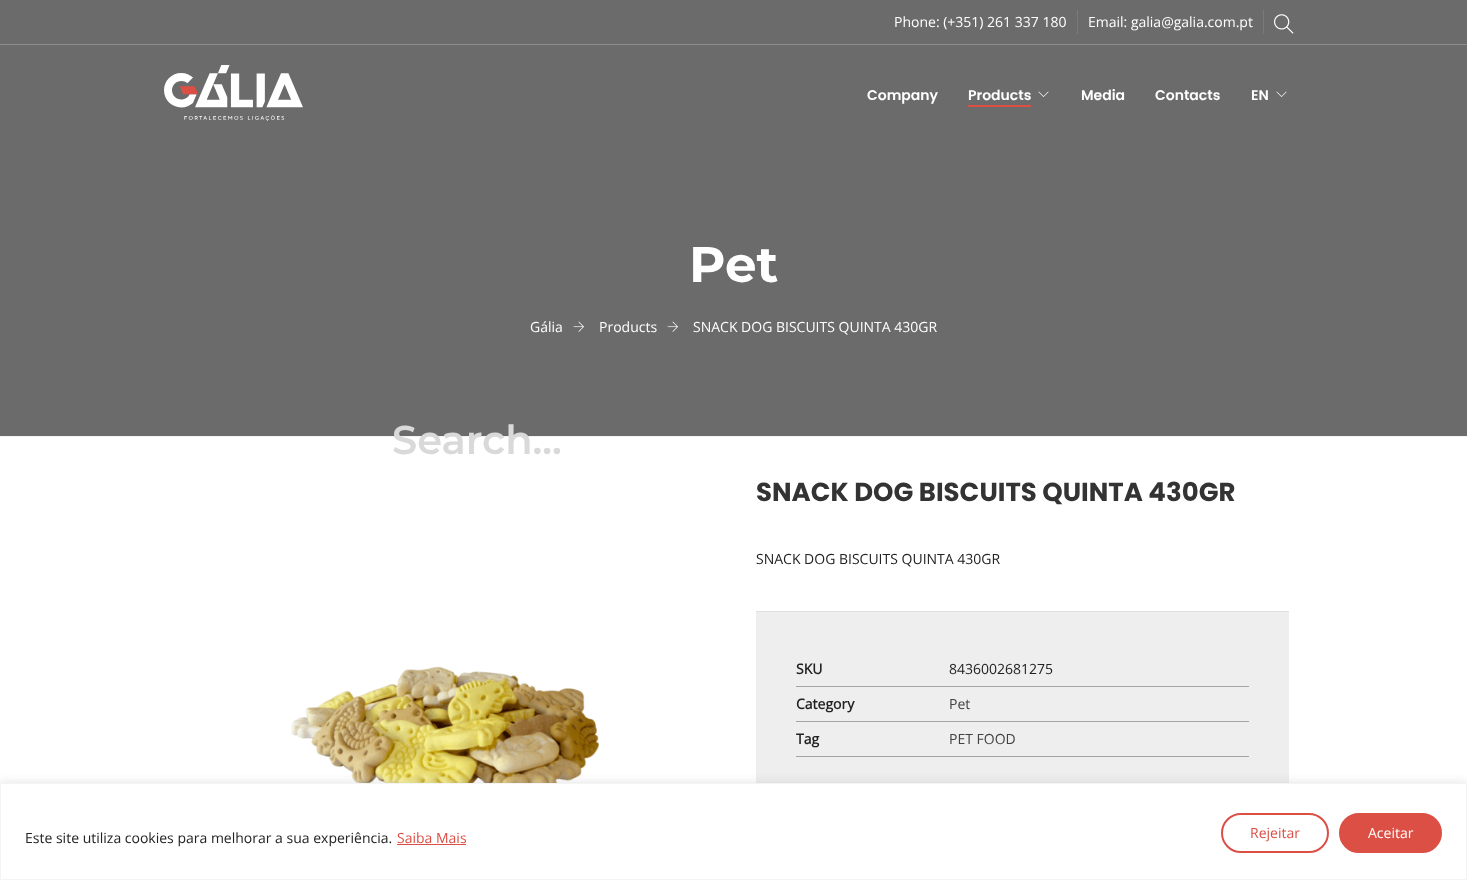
<!DOCTYPE html>
<meta charset="utf-8">
<style>body { margin: 0 } canvas { display: block }</style>
<canvas id="canvas" width="1467" height="880"></canvas>
<script type="module">
  const canvas = document.getElementById("canvas");
  const g = canvas.getContext("2d");
  g.miterLimit = 4;
  g.fontKerning = "normal";
  function drawText(s, x, y, [font, color]) {
    g.font = font;
    g.fillStyle = color;
    g.fillText(s, x, y);
  }
  function fillBox(x, y, w, h, color) {
    g.fillStyle = color;
    g.fillRect(x, y, w, h);
  }
  async function drawPicture(src, x, y, w, h) {
    const img = new Image();
    img.src = src;
    await img.decode();
    g.drawImage(img, x, y, w, h);
  }

  const s1 = ["14px Open Sans", "#FFFFFF"];
  const s2 = ["600 40px Montserrat", "#D9D9D9"];
  const s3 = ["600 14px Poppins", "#FFFFFF"];
  const s4 = ["bold 50px Montserrat", "#FFFFFF"];
  const s5 = ["bold 26px Poppins", "#333333"];
  const s6 = ["14px Open Sans", "#222222"];
  const s7 = ["bold 14px Open Sans", "#222222"];
  const s8 = ["14px Open Sans", "#424242"];
  const s9 = ["14px Open Sans", "#DB4F45"];

  fillBox(0, 0, 1467, 880, "#FFFFFF");
  fillBox(0, 0, 1467, 436, "#6B6B6B");
  fillBox(0, 44, 1467, 1, "#8D8D8D");
  drawText("Phone: (+351) 261 337 180", 894, 27, s1);
  fillBox(1263, 10, 1, 24, "#7A7A7A");
  fillBox(1077, 10, 1, 24, "#7A7A7A");
  drawText("Email: galia@galia.com.pt", 1088, 27, s1);
  await drawPicture("pic1.png", 1274, 14, 20, 20);
  fillBox(0, 436, 1467, 1, "#F2F2F2");
  drawText("Search...", 392, 454, s2);
  await drawPicture("pic2.png", 164, 65, 139, 56);
  drawText("Company", 867, 100, s3);
  drawText("Products", 968, 100, s3);
  await drawPicture("pic3.png", 1038, 91, 11, 6);
  fillBox(968, 105, 63, 2, "#DB4F45");
  drawText("Media", 1081, 100, s3);
  drawText("Contacts", 1155, 100, s3);
  drawText("EN", 1251, 100, s3);
  await drawPicture("pic3.png", 1276, 91, 11, 6);
  drawText("Pet", 689, 282, s4);
  drawText("Gália", 530, 332, s1);
  await drawPicture("pic4.png", 573, 321, 11, 11);
  drawText("Products", 599, 332, s1);
  await drawPicture("pic4.png", 667, 321, 11, 11);
  drawText("SNACK DOG BISCUITS QUINTA 430GR", 693, 332, s1);
  await drawPicture("pic5.png", 291, 666, 308, 117);
  drawText("SNACK DOG BISCUITS QUINTA 430GR", 756, 501, s5);
  drawText("SNACK DOG BISCUITS QUINTA 430GR", 756, 564, s6);
  fillBox(756, 612, 533, 171, "#EEEEEE");
  fillBox(756, 611, 533, 1, "#DFDFDF");
  fillBox(796, 686, 453, 1, "#A4A4A4");
  drawText("SKU", 796, 674, s7);
  drawText("8436002681275", 949, 674, s6);
  fillBox(796, 721, 453, 1, "#A4A4A4");
  drawText("Category", 796, 709, s7);
  drawText("Pet", 949, 709, s8);
  fillBox(796, 756, 453, 1, "#A4A4A4");
  drawText("Tag", 796, 744, s7);
  drawText("PET FOOD", 949, 744, s8);
  g.fillStyle = "rgba(172, 171, 171, 0.3)";
  g.filter = "blur(5px)";
  g.beginPath();
  g.rect(0, 782, 1467, 97);
  g.fill();
  g.filter = "none";
  g.fillStyle = "#FFFFFF";
  g.beginPath();
  g.rect(0.5, 783.5, 1466, 96);
  g.fill();
  g.strokeStyle = "#F4F4F4";
  g.stroke();
  drawText("Este site utiliza cookies para melhorar a sua experiência.", 25, 843, s6);
  drawText("Saiba Mais", 397, 843, s9);
  fillBox(397, 844, 69, 1, "#DB4F45");
  g.beginPath();
  g.roundRect(1222, 814, 106, 38, 19);
  g.strokeStyle = "#DB4F45";
  g.lineWidth = 2;
  g.stroke();
  drawText("Rejeitar", 1250, 838, s9);
  g.beginPath();
  g.roundRect(1340, 814, 101, 38, 19);
  g.fill();
  g.stroke();
  drawText("Aceitar", 1368, 838, s1);
</script>
